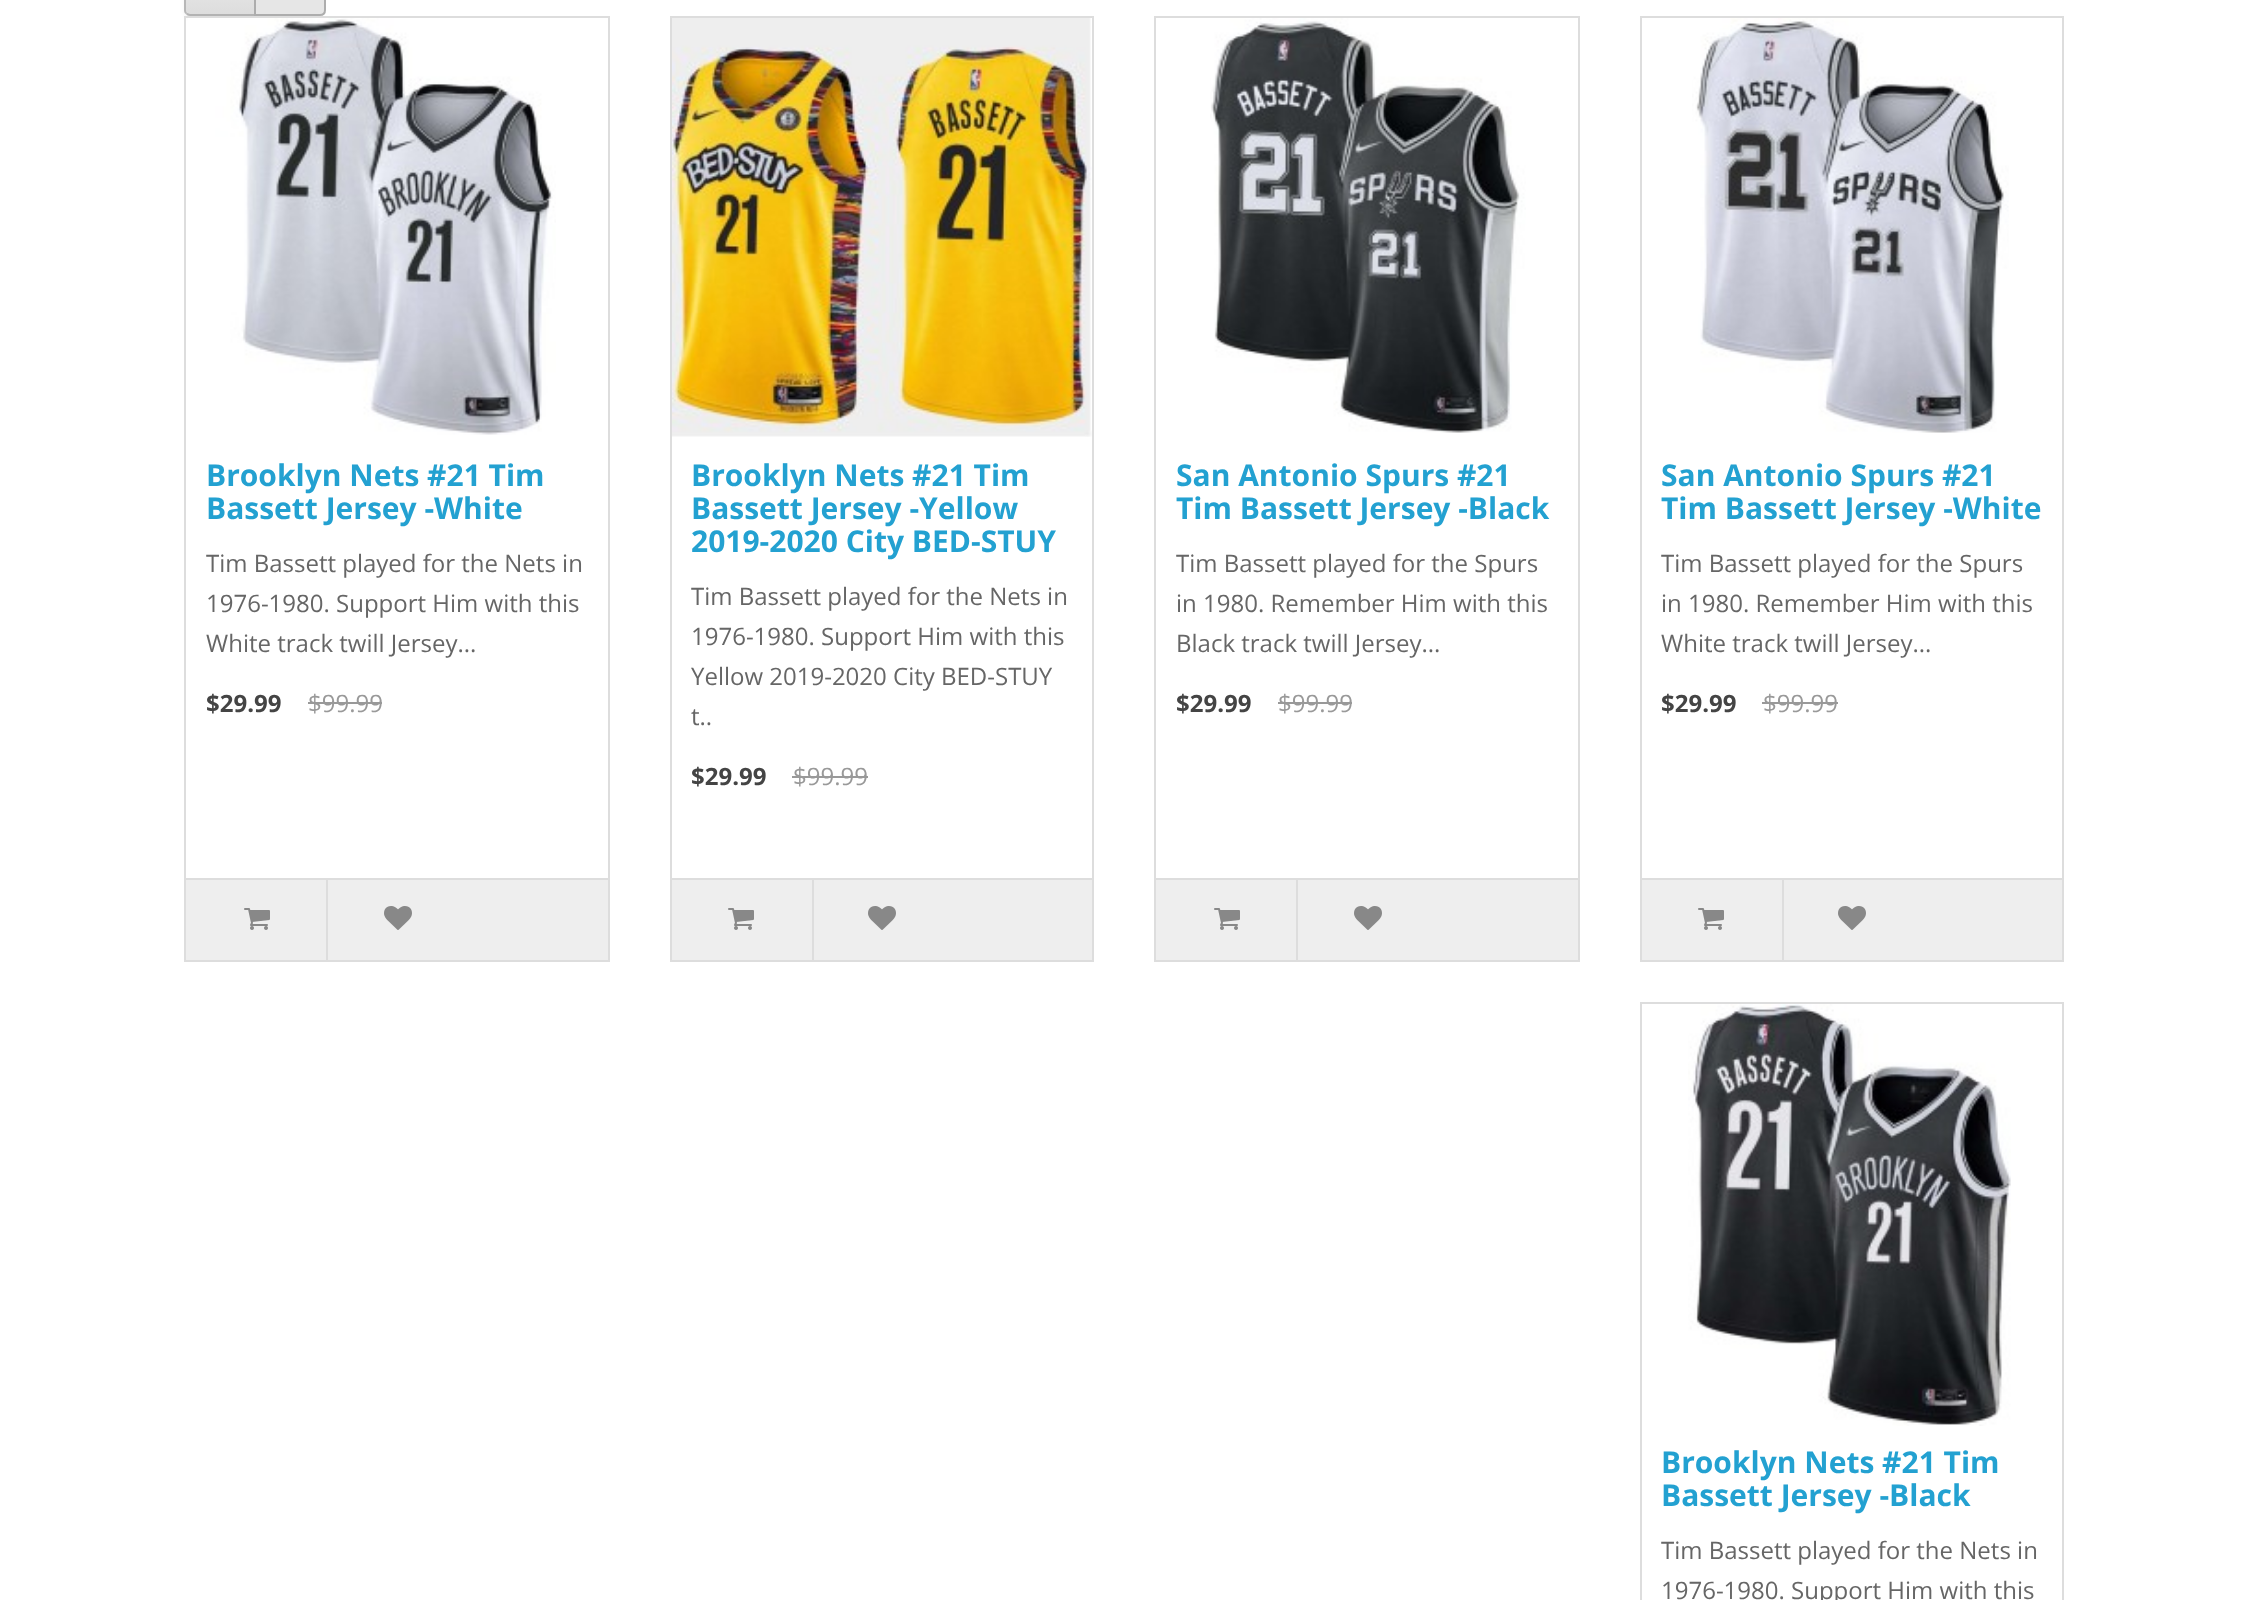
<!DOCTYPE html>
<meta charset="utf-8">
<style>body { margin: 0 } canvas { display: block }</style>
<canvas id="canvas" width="2248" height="1600"></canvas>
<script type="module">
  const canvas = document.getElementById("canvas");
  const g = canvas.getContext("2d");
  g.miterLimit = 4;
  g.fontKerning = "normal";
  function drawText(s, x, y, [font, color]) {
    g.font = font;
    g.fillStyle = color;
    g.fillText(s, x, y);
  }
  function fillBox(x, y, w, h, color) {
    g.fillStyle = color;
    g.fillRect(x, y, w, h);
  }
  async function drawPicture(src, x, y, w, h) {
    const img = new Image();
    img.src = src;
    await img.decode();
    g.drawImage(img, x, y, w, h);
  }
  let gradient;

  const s1 = ["bold 30px Open Sans", "#23A1D1"];
  const s2 = ["24px Open Sans", "#666666"];
  const s3 = ["bold 24px Open Sans", "#444444"];
  const s4 = ["24px Open Sans", "#999999"];

  fillBox(0, 0, 2248, 1600, "#FFFFFF");
  g.fillStyle = "rgba(0, 0, 0, 0.05)";
  g.filter = "blur(2px)";
  g.beginPath();
  g.roundRect(184, -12, 72, 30, 6);
  g.fill();
  g.filter = "none";
  g.fillStyle = "#E7E7E7";
  g.beginPath();
  g.moveTo(190, -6);
  g.lineTo(256, -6);
  g.lineTo(256, 16);
  g.lineTo(190, 16);
  g.bezierCurveTo(186.5, 16, 184, 13.5, 184, 10);
  g.lineTo(184, 0);
  g.bezierCurveTo(184, -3.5, 186.5, -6, 190, -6);
  g.closePath();
  g.fill();
  g.save();
  g.beginPath();
  g.moveTo(190, -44);
  g.lineTo(256, -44);
  g.lineTo(256, 16);
  g.lineTo(190, 16);
  g.bezierCurveTo(186.5, 16, 184, 13.5, 184, 10);
  g.lineTo(184, -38);
  g.bezierCurveTo(184, -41.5, 186.5, -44, 190, -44);
  g.closePath();
  g.clip();
  gradient = g.createLinearGradient(220, -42, 220, 14);
  gradient.addColorStop(0, "#EEEEEE");
  gradient.addColorStop(1, "#DDDDDD");
  g.fillStyle = gradient;
  g.fillRect(184, 0, 70, 14);
  g.restore();
  g.fillStyle = "#B3B3B3";
  g.beginPath();
  g.moveTo(256, 16);
  g.lineTo(254, 14);
  g.lineTo(190, 14);
  g.lineTo(187, 13);
  g.lineTo(186, 14);
  g.bezierCurveTo(187, 15, 188, 16, 190, 16);
  g.closePath();
  g.fill();
  g.fillStyle = "#B7B7B7";
  g.beginPath();
  g.moveTo(184, -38);
  g.lineTo(184, 10);
  g.bezierCurveTo(184, 12, 185, 13, 186, 14);
  g.lineTo(187, 13);
  g.bezierCurveTo(186, 12, 186, 11, 186, 10);
  g.lineTo(186, -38);
  g.bezierCurveTo(186, -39, 186, -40, 187, -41);
  g.lineTo(186, -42);
  g.bezierCurveTo(185, -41, 184, -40, 184, -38);
  g.closePath();
  g.fill();
  g.fillStyle = "#E6E6E6";
  g.beginPath();
  g.moveTo(255, -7);
  g.lineTo(320, -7);
  g.bezierCurveTo(323, -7, 325, -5, 325, -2);
  g.lineTo(325, 10);
  g.bezierCurveTo(325, 13, 323, 15, 320, 15);
  g.lineTo(255, 15);
  g.closePath();
  g.fill();
  g.strokeStyle = "#ADADAD";
  g.lineWidth = 2;
  g.stroke();
  g.strokeStyle = "#DDDDDD";
  g.strokeRect(185, 17, 424, 944);
  await drawPicture("pic1.png", 188, 18, 368, 417);
  drawText("Brooklyn Nets #21 Tim", 206, 486, s1);
  drawText("Bassett Jersey -White", 206, 519, s1);
  drawText("Tim Bassett played for the Nets in", 206, 572, s2);
  drawText("1976-1980. Support Him with this", 206, 612, s2);
  drawText("White track twill Jersey...", 206, 652, s2);
  drawText("$29.99", 206, 712, s3);
  drawText("$99.99", 308, 712, s4);
  fillBox(308, 702, 74, 2, "#999999");
  fillBox(186, 880, 422, 80, "#EEEEEE");
  fillBox(186, 878, 422, 2, "#DDDDDD");
  await drawPicture("pic2.png", 244, 908, 26, 22);
  fillBox(326, 880, 2, 80, "#DDDDDD");
  await drawPicture("pic3.png", 384, 906, 28, 24);
  g.strokeRect(671, 17, 422, 944);
  await drawPicture("pic4.png", 672, 18, 420, 419);
  drawText("Brooklyn Nets #21 Tim", 691, 486, s1);
  drawText("Bassett Jersey -Yellow", 691, 519, s1);
  drawText("2019-2020 City BED-STUY", 691, 552, s1);
  drawText("Tim Bassett played for the Nets in", 691, 605, s2);
  drawText("1976-1980. Support Him with this", 691, 645, s2);
  drawText("Yellow 2019-2020 City BED-STUY", 691, 685, s2);
  drawText("t..", 691, 725, s2);
  drawText("$29.99", 691, 785, s3);
  drawText("$99.99", 793, 785, s4);
  fillBox(792, 776, 76, 2, "#999999");
  fillBox(672, 880, 420, 80, "#EEEEEE");
  fillBox(672, 878, 420, 2, "#DDDDDD");
  await drawPicture("pic2.png", 728, 908, 26, 22);
  fillBox(812, 880, 2, 80, "#DDDDDD");
  await drawPicture("pic3.png", 868, 906, 28, 24);
  g.strokeRect(1155, 17, 424, 944);
  await drawPicture("pic5.png", 1210, 18, 316, 415);
  drawText("San Antonio Spurs #21", 1176, 486, s1);
  drawText("Tim Bassett Jersey -Black", 1176, 519, s1);
  drawText("Tim Bassett played for the Spurs", 1176, 572, s2);
  drawText("in 1980. Remember Him with this", 1176, 612, s2);
  drawText("Black track twill Jersey...", 1176, 652, s2);
  drawText("$29.99", 1176, 712, s3);
  drawText("$99.99", 1278, 712, s4);
  fillBox(1278, 702, 74, 2, "#999999");
  fillBox(1156, 880, 422, 80, "#EEEEEE");
  fillBox(1156, 878, 422, 2, "#DDDDDD");
  await drawPicture("pic2.png", 1214, 908, 26, 22);
  fillBox(1296, 880, 2, 80, "#DDDDDD");
  await drawPicture("pic3.png", 1354, 906, 28, 24);
  g.strokeRect(1641, 17, 422, 944);
  await drawPicture("pic6.png", 1692, 18, 317, 415);
  drawText("San Antonio Spurs #21", 1661, 486, s1);
  drawText("Tim Bassett Jersey -White", 1661, 519, s1);
  drawText("Tim Bassett played for the Spurs", 1661, 572, s2);
  drawText("in 1980. Remember Him with this", 1661, 612, s2);
  drawText("White track twill Jersey...", 1661, 652, s2);
  drawText("$29.99", 1661, 712, s3);
  drawText("$99.99", 1763, 712, s4);
  fillBox(1762, 702, 76, 2, "#999999");
  fillBox(1642, 880, 420, 80, "#EEEEEE");
  fillBox(1642, 878, 420, 2, "#DDDDDD");
  await drawPicture("pic2.png", 1698, 908, 26, 22);
  fillBox(1782, 880, 2, 80, "#DDDDDD");
  await drawPicture("pic3.png", 1838, 906, 28, 24);
  g.strokeRect(1641, 1003, 422, 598);
  await drawPicture("pic7.png", 1688, 1004, 323, 422);
  drawText("Brooklyn Nets #21 Tim", 1661, 1473, s1);
  drawText("Bassett Jersey -Black", 1661, 1506, s1);
  drawText("Tim Bassett played for the Nets in", 1661, 1559, s2);
  drawText("1976-1980. Support Him with this", 1661, 1599, s2);
</script>
